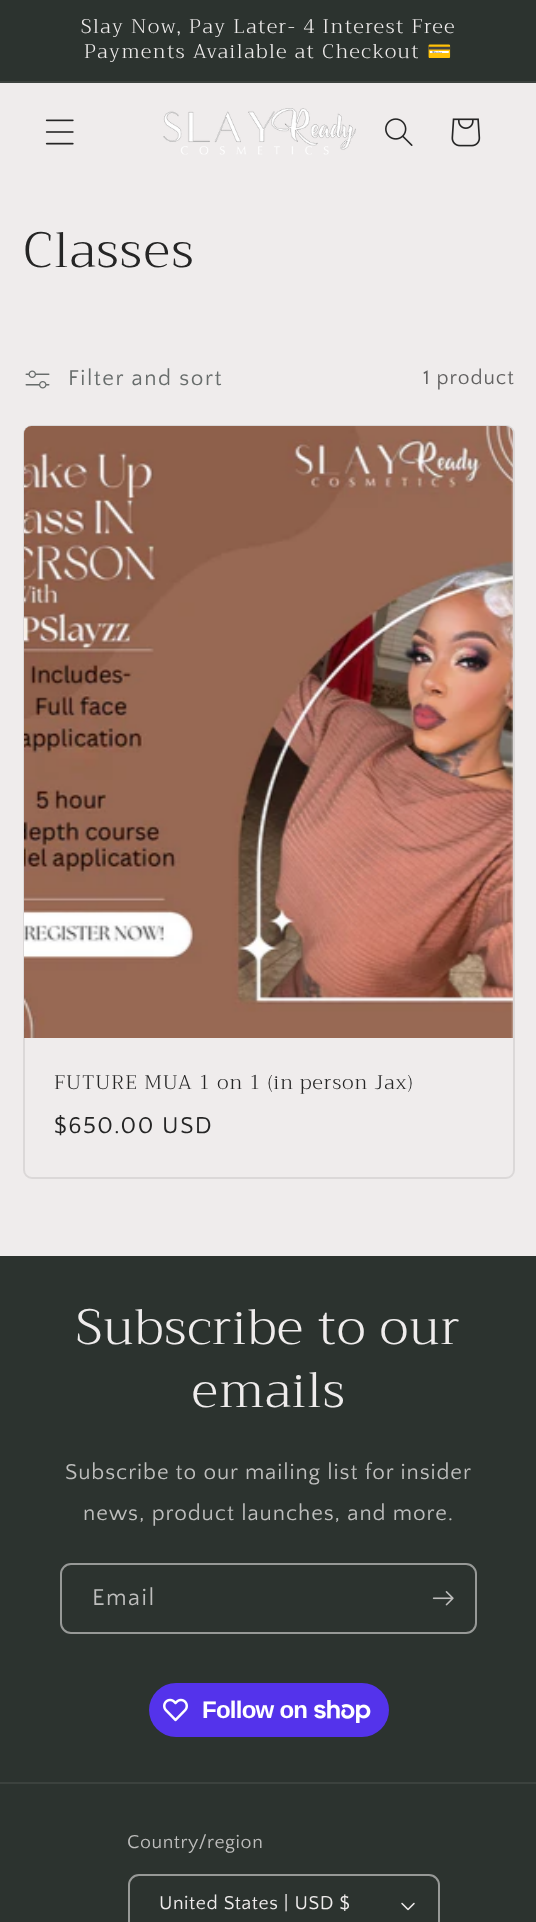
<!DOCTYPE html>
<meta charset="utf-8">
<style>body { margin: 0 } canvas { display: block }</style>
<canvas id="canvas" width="536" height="1922"></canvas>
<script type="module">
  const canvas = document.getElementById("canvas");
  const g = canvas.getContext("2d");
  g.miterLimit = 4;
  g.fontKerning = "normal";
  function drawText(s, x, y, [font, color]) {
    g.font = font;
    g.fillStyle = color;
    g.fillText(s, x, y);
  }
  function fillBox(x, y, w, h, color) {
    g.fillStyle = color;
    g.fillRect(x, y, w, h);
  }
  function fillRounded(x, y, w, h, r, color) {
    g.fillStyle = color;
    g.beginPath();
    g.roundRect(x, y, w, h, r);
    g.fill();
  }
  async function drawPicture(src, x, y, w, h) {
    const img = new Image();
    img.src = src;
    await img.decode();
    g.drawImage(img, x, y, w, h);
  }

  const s1 = ["300 19.75px Trirong", "#EFECEC"];
  const s2 = ["19.75px Noto Color Emoji", "#EFECEC"];
  const s3 = ["300 49.5px Trirong", "#252525"];
  const s4 = ["22.5px Quattrocento Sans", "#686D6C"];
  const s5 = ["21px Quattrocento Sans", "#626161"];
  const s6 = ["300 19.75px Trirong", "#252525"];
  const s7 = ["24px Quattrocento Sans", "#252525"];
  const s8 = ["300 49.5px Trirong", "#EFECEC"];
  const s9 = ["22.5px Quattrocento Sans", "#BEBEBD"];
  const s10 = ["24px Quattrocento Sans", "#BEBEBD"];
  const s11 = ["bold 24px Liberation Sans", "#FFFFFF"];
  const s12 = ["19.5px Quattrocento Sans", "#BEBEBD"];
  const s13 = ["19.5px Quattrocento Sans", "#EFECEC"];

  fillBox(0, 0, 536, 1922, "#EFECEC");
  fillBox(0, 0, 536, 81, "#2C332F");
  fillBox(0, 81, 536, 2, "#3C423E");
  g.letterSpacing = "1.5px";
  drawText("Slay Now, Pay Later- 4 Interest Free", 81, 33, s1);
  drawText("Payments Available at Checkout", 84, 58, s1);
  drawText("💳", 427, 58, s2);
  await drawPicture("pic1.png", 45, 119, 29, 26);
  await drawPicture("pic2.png", 163, 108, 193, 47);
  await drawPicture("pic3.png", 385, 118, 28, 28);
  await drawPicture("pic4.png", 451, 118, 30, 29);
  g.letterSpacing = "1px";
  drawText("Classes", 23, 267, s3);
  await drawPicture("pic5.png", 25, 370, 25, 19);
  g.letterSpacing = "1.5px";
  drawText("Filter and sort", 68, 385, s4);
  g.letterSpacing = "0.9px";
  drawText("1 product", 423, 384, s5);
  g.beginPath();
  g.roundRect(24, 426, 490, 752, 8);
  g.strokeStyle = "#DBD8D8";
  g.lineWidth = 2;
  g.stroke();
  await drawPicture("pic6.png", 24, 426, 489, 612);
  g.letterSpacing = "1px";
  drawText("FUTURE MUA 1 on 1 (in person Jax)", 54, 1089, s6);
  g.letterSpacing = "1.5px";
  drawText("$650.00 USD", 54, 1133, s7);
  fillBox(0, 1256, 536, 666, "#2C332F");
  g.letterSpacing = "1px";
  drawText("Subscribe to our", 76, 1344, s8);
  drawText("emails", 192, 1407, s8);
  g.letterSpacing = "0.9px";
  drawText("Subscribe to our mailing list for insider", 65, 1479, s9);
  drawText("news, product launches, and more.", 83, 1520, s9);
  g.beginPath();
  g.roundRect(61, 1564, 415, 69, 10);
  g.strokeStyle = "#979997";
  g.stroke();
  g.letterSpacing = "1.5px";
  drawText("Email", 92, 1605, s10);
  await drawPicture("pic7.png", 432, 1591, 22, 15);
  fillRounded(149, 1683, 240, 54, 27, "#5433EB");
  await drawPicture("pic8.png", 163, 1698, 25, 24);
  g.letterSpacing = "-0.75px";
  drawText("Follow on", 202, 1718, s11);
  await drawPicture("pic9.png", 314, 1700, 57, 23);
  fillBox(0, 1782, 536, 2, "#3C423E");
  g.letterSpacing = "0.6px";
  drawText("Country/region", 127, 1848, s12);
  await drawPicture("pic10.png", 401, 1902, 14, 9);
  g.beginPath();
  g.roundRect(129, 1875, 310, 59, 10);
  g.stroke();
  drawText("United States | USD $", 159, 1909, s13);
</script>
